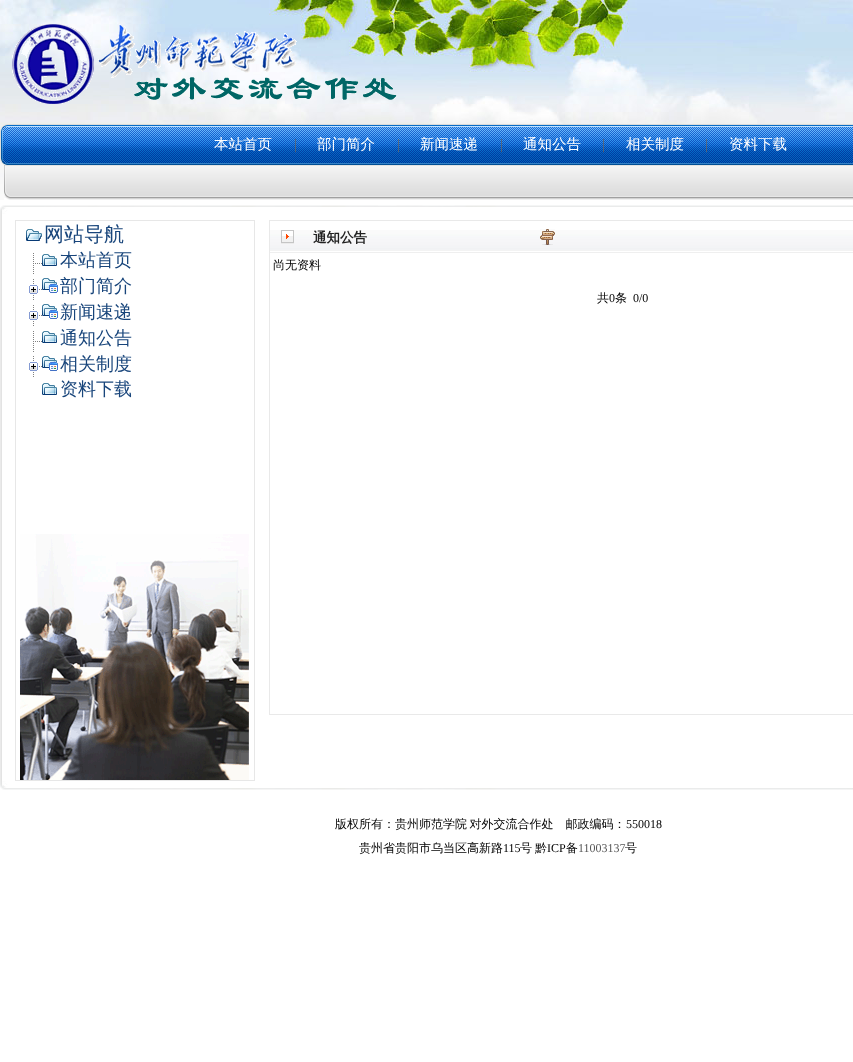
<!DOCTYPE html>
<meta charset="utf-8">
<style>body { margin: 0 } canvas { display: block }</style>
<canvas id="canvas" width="853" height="1062"></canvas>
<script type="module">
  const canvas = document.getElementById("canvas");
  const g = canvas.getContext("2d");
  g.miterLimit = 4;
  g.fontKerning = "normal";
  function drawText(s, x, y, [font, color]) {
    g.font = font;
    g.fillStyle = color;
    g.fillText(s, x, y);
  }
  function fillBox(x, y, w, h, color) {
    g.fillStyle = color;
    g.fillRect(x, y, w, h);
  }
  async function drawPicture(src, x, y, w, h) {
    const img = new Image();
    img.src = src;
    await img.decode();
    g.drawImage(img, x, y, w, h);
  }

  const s1 = ["500 14.5px WenQuanYi Zen Hei", "#FFFFFF"];
  const s2 = ["14.5px Liberation Serif", "#666666"];
  const s3 = ["500 20px WenQuanYi Zen Hei", "#18457B"];
  const s4 = ["500 18px WenQuanYi Zen Hei", "#18457B"];
  const s5 = ["bold 13.5px WenQuanYi Zen Hei", "#222222"];
  const s6 = ["500 12px WenQuanYi Zen Hei", "#000000"];
  const s7 = ["12px Liberation Serif", "#000000"];
  const s8 = ["12px Liberation Serif", "#585858"];

  fillBox(0, 0, 853, 1062, "#FFFFFF");
  await drawPicture("pic1.png", 0, 0, 853, 124);
  await drawPicture("pic2.png", 12, 24, 385, 80);
  await drawPicture("pic3.png", 0, 165, 4, 35);
  await drawPicture("pic4.png", 9, 124, 844, 41);
  await drawPicture("pic5.png", 0, 124, 9, 41);
  drawText("本站首页", 214, 149, s1);
  drawText("|", 294, 149, s2);
  drawText("部门简介", 317, 149, s1);
  drawText("|", 397, 149, s2);
  drawText("新闻速递", 420, 149, s1);
  drawText("|", 500, 149, s2);
  drawText("通知公告", 523, 149, s1);
  drawText("|", 602, 149, s2);
  drawText("相关制度", 626, 149, s1);
  drawText("|", 705, 149, s2);
  drawText("资料下载", 729, 149, s1);
  await drawPicture("pic6.png", 10, 165, 843, 35);
  await drawPicture("pic7.png", 4, 165, 6, 35);
  await drawPicture("pic8.png", 0, 205, 853, 9);
  await drawPicture("pic9.png", 0, 214, 2, 567);
  g.strokeStyle = "#E7E7E7";
  g.strokeRect(15.5, 220.5, 239, 560);
  await drawPicture("pic10.png", 26, 229, 16, 12);
  drawText("网站导航", 44, 241, s3);
  await drawPicture("pic11.png", 33, 253, 9, 21);
  await drawPicture("pic12.png", 42, 254, 15, 12);
  drawText("本站首页", 60, 266, s4);
  await drawPicture("pic13.png", 29, 279, 13, 21);
  await drawPicture("pic14.png", 42, 278, 16, 15);
  drawText("部门简介", 60, 292, s4);
  await drawPicture("pic13.png", 29, 305, 13, 21);
  await drawPicture("pic14.png", 42, 304, 16, 15);
  drawText("新闻速递", 60, 318, s4);
  await drawPicture("pic11.png", 33, 331, 9, 21);
  await drawPicture("pic12.png", 42, 331, 15, 12);
  drawText("通知公告", 60, 344, s4);
  await drawPicture("pic13.png", 29, 356, 13, 21);
  await drawPicture("pic14.png", 42, 356, 16, 15);
  drawText("相关制度", 60, 370, s4);
  await drawPicture("pic12.png", 42, 383, 15, 12);
  drawText("资料下载", 60, 395, s4);
  await drawPicture("pic15.png", 20, 534, 229, 246);
  g.strokeStyle = "#E9E9E9";
  g.strokeRect(269.5, 220.5, 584, 494);
  await drawPicture("pic16.png", 270, 230, 583, 23);
  await drawPicture("pic17.png", 281, 230, 13, 14);
  drawText("通知公告", 313, 242, s5);
  await drawPicture("pic18.png", 540, 229, 15, 16);
  drawText("尚无资料", 273, 269, s6);
  drawText("共", 597, 302, s6);
  drawText("0", 609, 302, s7);
  drawText("条", 615, 302, s6);
  drawText("0/0", 633, 302, s7);
  await drawPicture("pic19.png", 0, 781, 853, 9);
  g.wordSpacing = "-1px";
  drawText("版权所有：贵州师范学院 对外交流合作处　邮政编码：", 335, 828, s6);
  g.wordSpacing = "0px";
  drawText("550018", 626, 828, s7);
  drawText("贵州省贵阳市乌当区高新路", 359, 852, s6);
  drawText("115", 503, 852, s7);
  drawText("号", 520, 852, s6);
  drawText("黔", 535, 852, s6);
  drawText("ICP", 547, 852, s7);
  drawText("备", 566, 852, s6);
  drawText("11003137", 578, 852, s8);
  drawText("号", 625, 852, s6);
</script>
